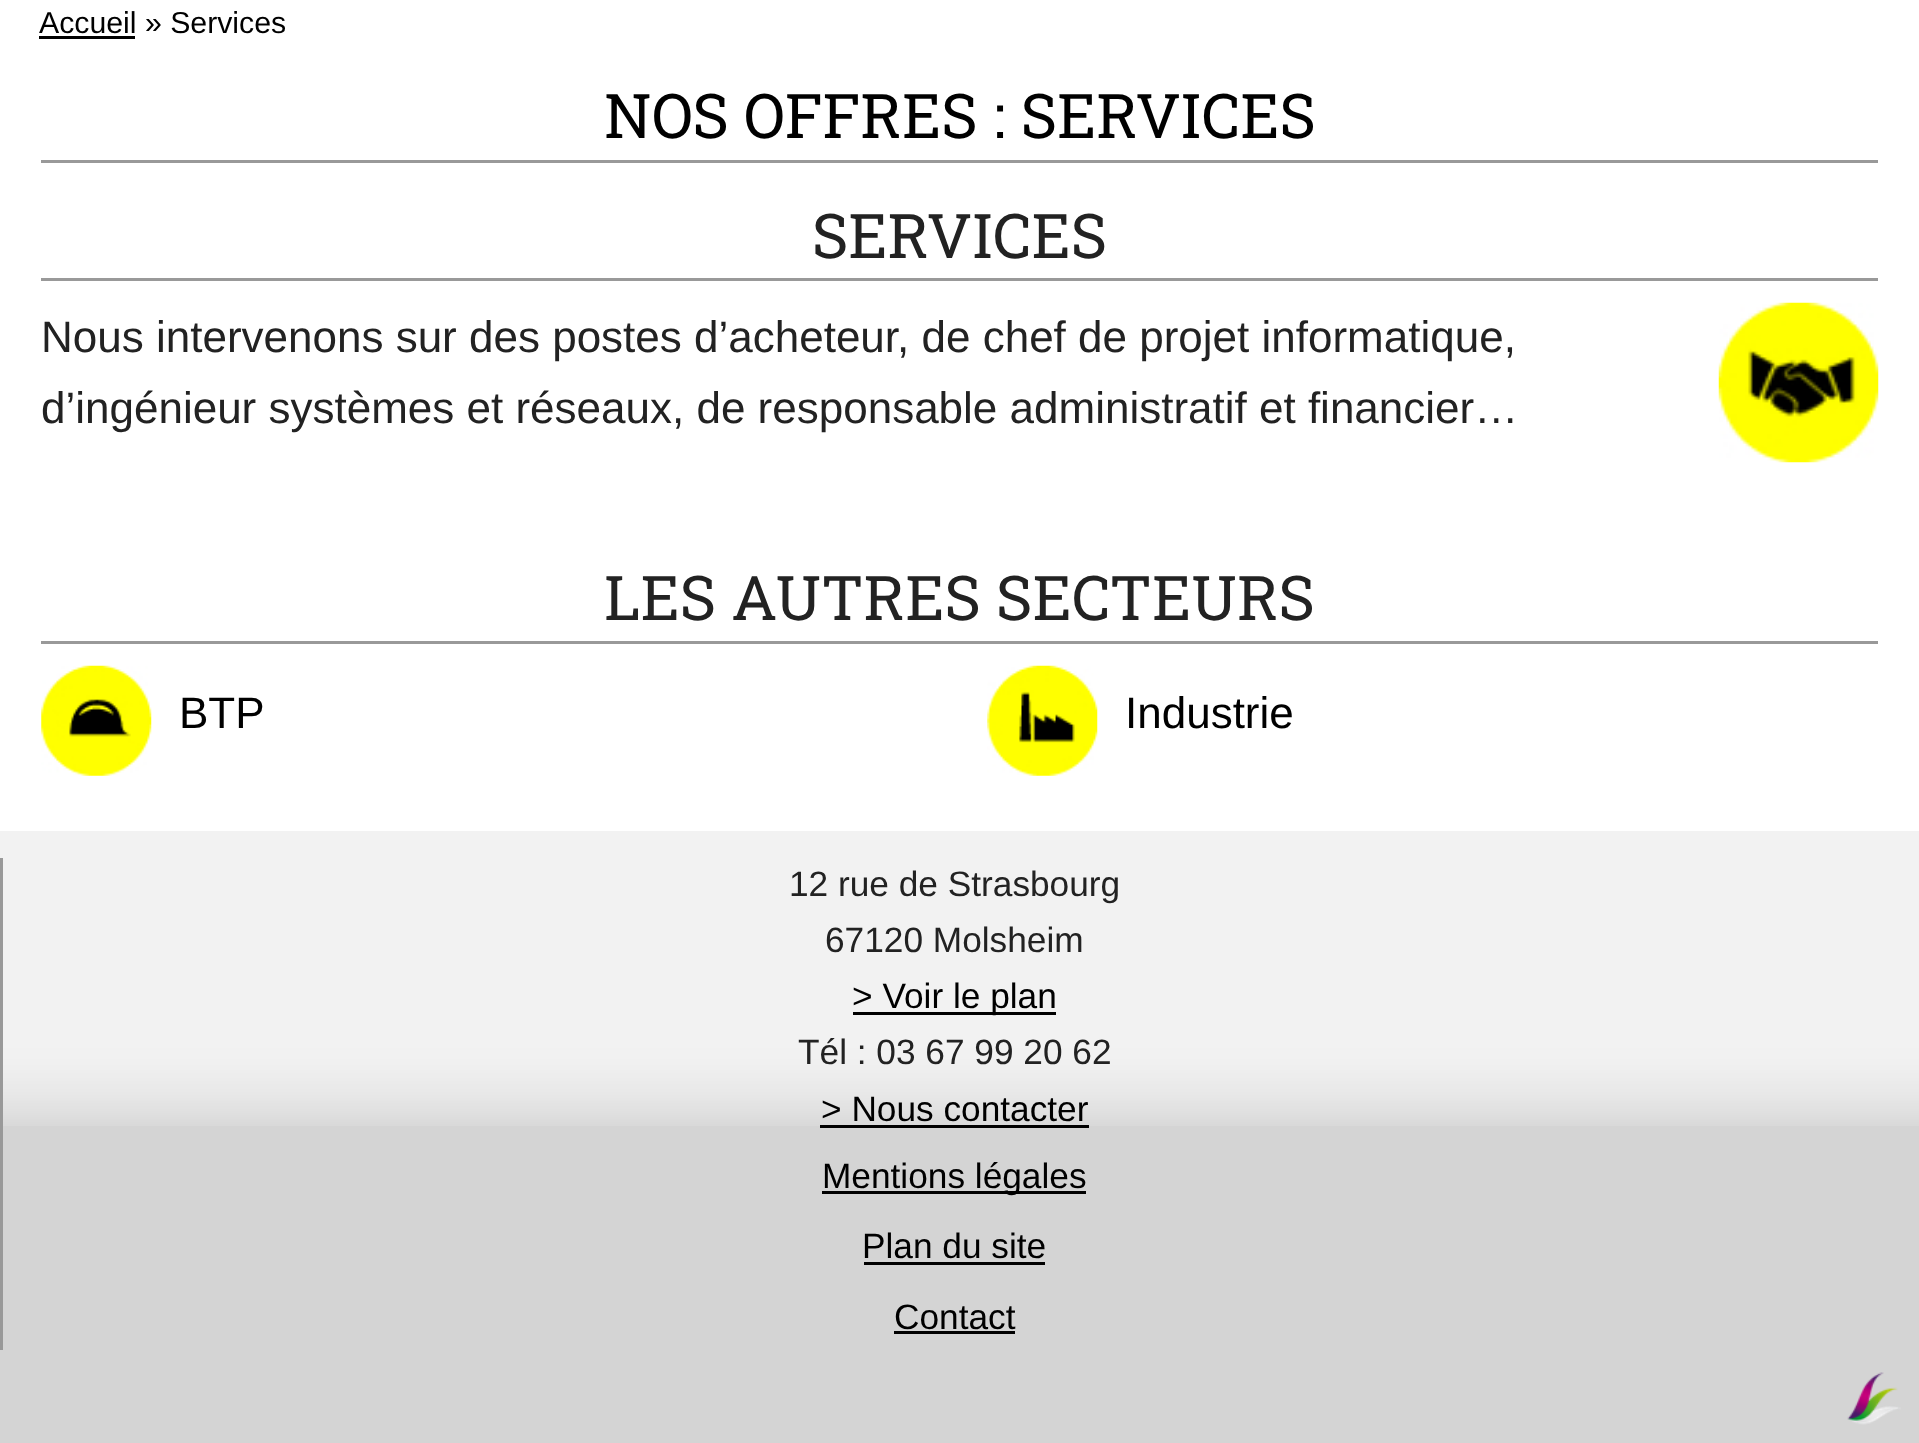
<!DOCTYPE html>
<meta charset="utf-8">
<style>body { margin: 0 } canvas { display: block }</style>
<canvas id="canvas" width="1919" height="1443"></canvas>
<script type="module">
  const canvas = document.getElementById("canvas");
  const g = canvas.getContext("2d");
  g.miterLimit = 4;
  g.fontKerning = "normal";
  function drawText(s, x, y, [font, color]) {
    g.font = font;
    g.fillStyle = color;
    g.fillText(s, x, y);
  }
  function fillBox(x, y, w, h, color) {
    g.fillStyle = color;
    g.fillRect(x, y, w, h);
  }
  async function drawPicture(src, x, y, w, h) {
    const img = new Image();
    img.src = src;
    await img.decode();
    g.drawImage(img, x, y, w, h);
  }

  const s1 = ["30.25px Liberation Sans", "#000000"];
  const s2 = ["61.6px Roboto Slab", "#000000"];
  const s3 = ["61.6px Roboto Slab", "#222222"];
  const s4 = ["44px Liberation Sans", "#222222"];
  const s5 = ["44px Liberation Sans", "#000000"];
  const s6 = ["35.25px Liberation Sans", "#222222"];
  const s7 = ["35.25px Liberation Sans", "#000000"];

  fillBox(0, 0, 1919, 1443, "#FFFFFF");
  drawText("Accueil » Services", 39, 33, s1);
  fillBox(39, 36, 96, 3, "#000000");
  fillBox(41, 160, 1837, 3, "#999999");
  drawText("NOS OFFRES : SERVICES", 604, 138, s2);
  fillBox(41, 278, 1837, 3, "#999999");
  drawText("SERVICES", 812, 258, s3);
  drawText("Nous intervenons sur des postes d’acheteur, de chef de projet informatique,", 41, 352, s4);
  drawText("d’ingénieur systèmes et réseaux, de responsable administratif et financier…", 41, 423, s4);
  await drawPicture("pic1.png", 1718, 302, 161, 161);
  fillBox(41, 641, 1837, 3, "#999999");
  drawText("LES AUTRES SECTEURS", 604, 620, s3);
  await drawPicture("pic2.png", 41, 665, 111, 111);
  drawText("BTP", 179, 728, s5);
  await drawPicture("pic3.png", 987, 665, 111, 111);
  drawText("Industrie", 1125, 728, s5);
  fillBox(0, 1126, 1919, 317, "#D4D4D4");
  await drawPicture("pic4.png", 0, 831, 1919, 295);
  fillBox(0, 858, 3, 492, "#999999");
  drawText("12 rue de Strasbourg", 789, 896, s6);
  drawText("67120 Molsheim", 825, 952, s6);
  fillBox(853, 1012, 203, 3, "#000000");
  drawText("> Voir le plan", 852, 1008, s7);
  drawText("Tél : 03 67 99 20 62", 798, 1064, s6);
  drawText("> Nous contacter", 821, 1121, s7);
  fillBox(820, 1125, 269, 3, "#000000");
  fillBox(822, 1191, 264, 3, "#000000");
  drawText("Mentions légales", 822, 1188, s7);
  drawText("Plan du site", 862, 1258, s7);
  fillBox(864, 1262, 181, 3, "#000000");
  drawText("Contact", 894, 1329, s7);
  fillBox(894, 1331, 121, 3, "#000000");
  await drawPicture("pic5.png", 1847, 1372, 54, 53);
</script>
